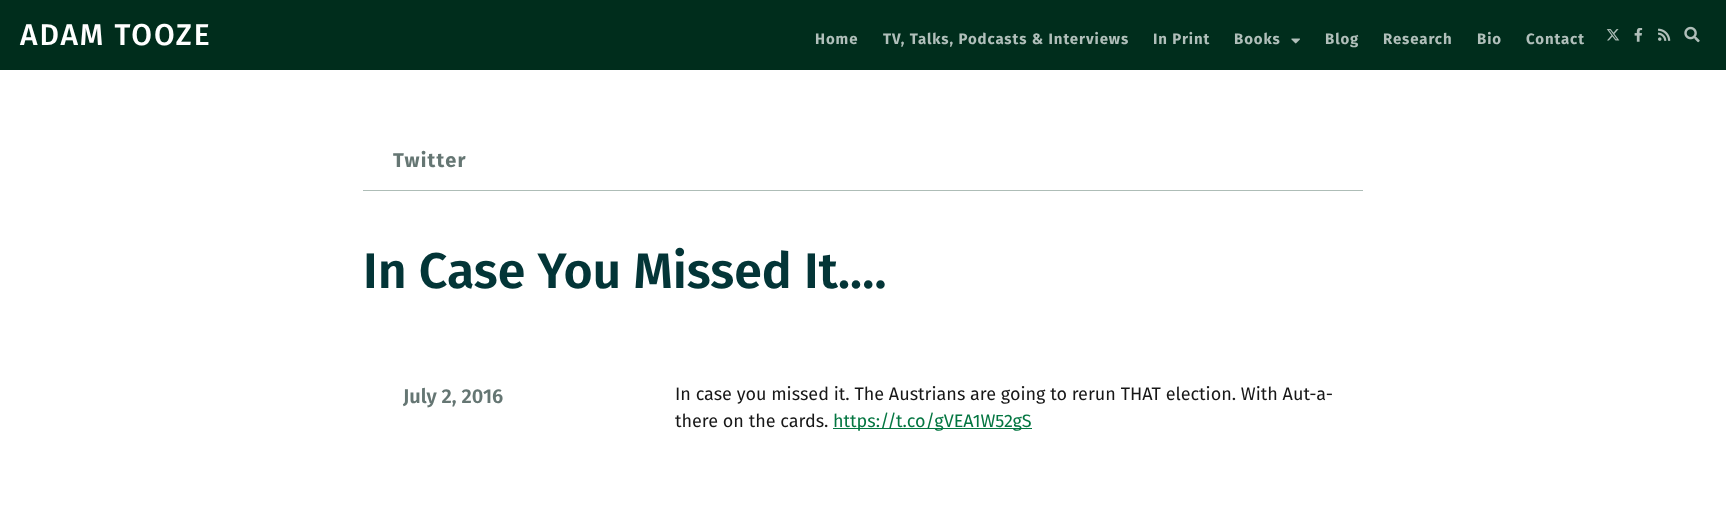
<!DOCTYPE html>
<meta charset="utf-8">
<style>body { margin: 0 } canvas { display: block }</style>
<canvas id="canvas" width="1726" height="516"></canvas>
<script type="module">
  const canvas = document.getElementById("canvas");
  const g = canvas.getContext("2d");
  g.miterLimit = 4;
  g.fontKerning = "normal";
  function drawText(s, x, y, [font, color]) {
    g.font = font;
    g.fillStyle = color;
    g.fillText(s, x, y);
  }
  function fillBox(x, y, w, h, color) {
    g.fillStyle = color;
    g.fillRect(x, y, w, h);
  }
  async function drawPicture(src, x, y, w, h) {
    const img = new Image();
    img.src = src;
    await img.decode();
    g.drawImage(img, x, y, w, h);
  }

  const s1 = ["500 30px Fira Sans", "#FFFFFF"];
  const s2 = ["bold 15px Fira Sans", "#B0BFBA"];
  const s3 = ["bold 20px Fira Sans", "#657673"];
  const s4 = ["600 50px Fira Sans", "#033537"];
  const s5 = ["600 20px Fira Sans", "#657673"];
  const s6 = ["18px Fira Sans", "#171717"];
  const s7 = ["18px Fira Sans", "#047641"];

  fillBox(0, 0, 1726, 516, "#FFFFFF");
  fillBox(0, 0, 1726, 70, "#002D1C");
  g.letterSpacing = "1.9px";
  drawText("ADAM TOOZE", 20, 45, s1);
  g.letterSpacing = "0.9px";
  drawText("Home", 815, 44, s2);
  drawText("TV, Talks, Podcasts & Interviews", 883, 44, s2);
  drawText("In Print", 1153, 44, s2);
  drawText("Books", 1234, 44, s2);
  await drawPicture("pic1.png", 1291, 38, 9, 6);
  drawText("Blog", 1325, 44, s2);
  drawText("Research", 1383, 44, s2);
  drawText("Bio", 1477, 44, s2);
  drawText("Contact", 1526, 44, s2);
  await drawPicture("pic2.png", 1606, 29, 14, 12);
  await drawPicture("pic3.png", 1634, 28, 9, 14);
  await drawPicture("pic4.png", 1658, 28, 13, 13);
  await drawPicture("pic5.png", 1684, 26, 16, 17);
  fillBox(363, 190, 1000, 1, "#AEBDB7");
  g.letterSpacing = "1.25px";
  drawText("Twitter", 393, 167, s3);
  g.letterSpacing = "0px";
  drawText("In Case You Missed It.…", 363, 288, s4);
  drawText("July 2, 2016", 403, 403, s5);
  drawText("In case you missed it. The Austrians are going to rerun THAT election. With Aut-a-", 675, 400, s6);
  drawText("there on the cards.", 675, 427, s6);
  fillBox(833, 428, 199, 1, "#047641");
  drawText("https://t.co/gVEA1W52gS", 833, 427, s7);
</script>
